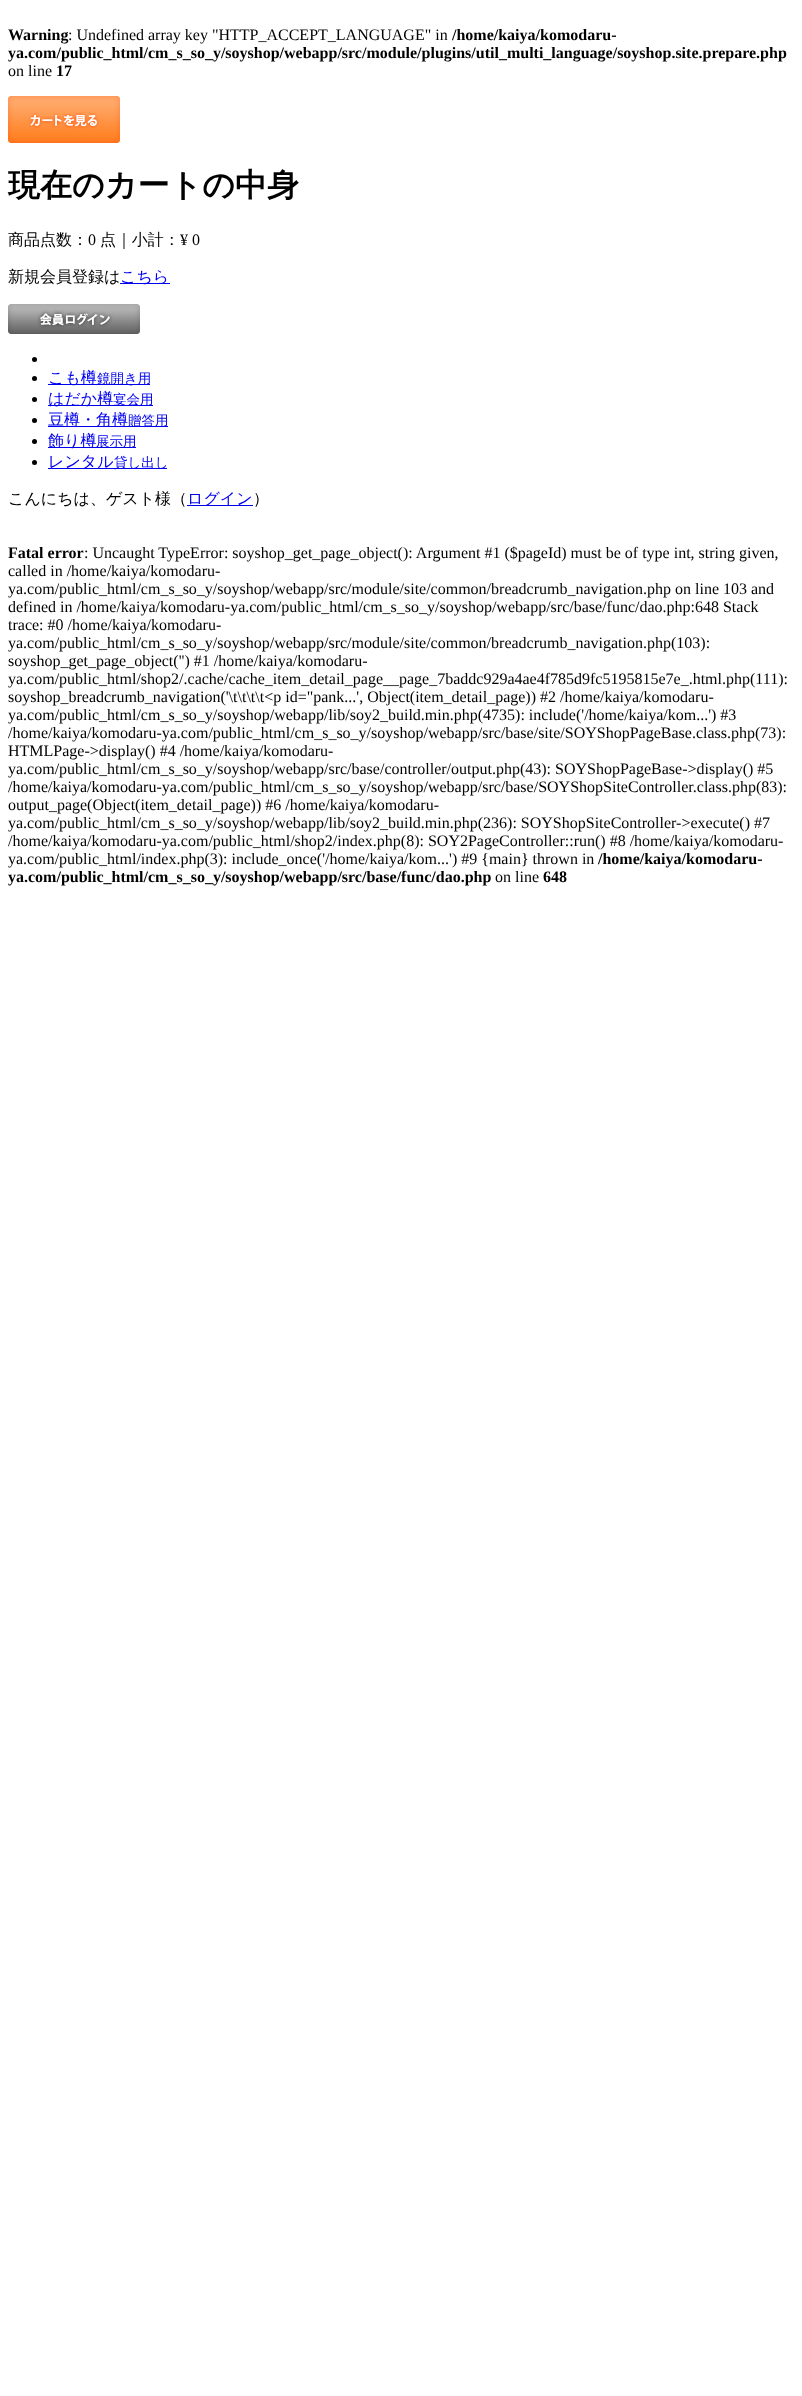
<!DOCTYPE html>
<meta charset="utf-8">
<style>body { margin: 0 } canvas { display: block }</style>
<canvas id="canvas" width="802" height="2396"></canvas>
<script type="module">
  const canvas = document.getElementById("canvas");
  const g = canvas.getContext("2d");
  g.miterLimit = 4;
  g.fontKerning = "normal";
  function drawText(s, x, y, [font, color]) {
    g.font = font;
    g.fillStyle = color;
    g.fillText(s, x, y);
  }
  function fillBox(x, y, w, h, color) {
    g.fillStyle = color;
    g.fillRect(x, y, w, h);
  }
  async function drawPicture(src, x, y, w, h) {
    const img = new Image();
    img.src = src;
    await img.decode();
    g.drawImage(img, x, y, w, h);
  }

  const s1 = ["bold 16px Liberation Serif", "#000000"];
  const s2 = ["16px Liberation Serif", "#000000"];
  const s3 = ["bold 32px WenQuanYi Zen Hei", "#000000"];
  const s4 = ["500 16px WenQuanYi Zen Hei", "#000000"];
  const s5 = ["500 16px WenQuanYi Zen Hei", "#0000EE"];
  const s6 = ["500 13.5px WenQuanYi Zen Hei", "#0000EE"];

  fillBox(0, 0, 802, 2396, "#FFFFFF");
  drawText("Warning", 8, 40, s1);
  drawText(": Undefined array key \"HTTP_ACCEPT_LANGUAGE\" in", 68, 40, s2);
  drawText("/home/kaiya/komodaru-", 452, 40, s1);
  drawText("ya.com/public_html/cm_s_so_y/soyshop/webapp/src/module/plugins/util_multi_language/soyshop.site.prepare.php", 8, 58, s1);
  drawText("on line", 8, 76, s2);
  drawText("17", 56, 76, s1);
  await drawPicture("pic1.png", 8, 96, 112, 47);
  drawText("現在のカートの中身", 8, 196, s3);
  drawText("商品点数：", 8, 245, s4);
  drawText("0", 88, 245, s2);
  drawText("点｜小計：", 100, 245, s4);
  drawText("¥ 0", 180, 245, s2);
  drawText("新規会員登録は", 8, 282, s4);
  fillBox(120, 283, 50, 1, "#0000EE");
  drawText("こちら", 120, 282, s5);
  await drawPicture("pic2.png", 8, 304, 132, 30);
  g.fillStyle = "#000000";
  g.beginPath();
  g.arc(34.5, 359.5, 2.5, 0, Math.PI * 2);
  g.fill();
  g.beginPath();
  g.arc(34.5, 378.5, 2.5, 0, Math.PI * 2);
  g.fill();
  fillBox(48, 384, 102, 1, "#0000EE");
  drawText("こも樽", 48, 383, s5);
  drawText("鏡開き用", 97, 383, s6);
  g.fillStyle = "#000000";
  g.beginPath();
  g.arc(34.5, 399.5, 2.5, 0, Math.PI * 2);
  g.fill();
  fillBox(48, 405, 105, 1, "#0000EE");
  drawText("はだか樽", 48, 404, s5);
  drawText("宴会用", 113, 404, s6);
  g.fillStyle = "#000000";
  g.beginPath();
  g.arc(34.5, 420.5, 2.5, 0, Math.PI * 2);
  g.fill();
  fillBox(48, 426, 120, 1, "#0000EE");
  drawText("豆樽・角樽", 48, 425, s5);
  drawText("贈答用", 128, 425, s6);
  g.fillStyle = "#000000";
  g.beginPath();
  g.arc(34.5, 441.5, 2.5, 0, Math.PI * 2);
  g.fill();
  fillBox(48, 447, 88, 1, "#0000EE");
  drawText("飾り樽", 48, 446, s5);
  drawText("展示用", 96, 446, s6);
  g.fillStyle = "#000000";
  g.beginPath();
  g.arc(34.5, 462.5, 2.5, 0, Math.PI * 2);
  g.fill();
  fillBox(48, 468, 119, 1, "#0000EE");
  drawText("レンタル", 48, 467, s5);
  drawText("貸し出し", 114, 467, s6);
  drawText("こんにちは、ゲスト様（", 8, 504, s4);
  fillBox(187, 505, 66, 1, "#0000EE");
  drawText("ログイン", 187, 504, s5);
  drawText("）", 253, 504, s4);
  drawText("Fatal error", 8, 558, s1);
  drawText(": Uncaught TypeError: soyshop_get_page_object(): Argument #1 ($pageId) must be of type int, string given,", 84, 558, s2);
  drawText("called in /home/kaiya/komodaru-", 8, 576, s2);
  drawText("ya.com/public_html/cm_s_so_y/soyshop/webapp/src/module/site/common/breadcrumb_navigation.php on line 103 and", 8, 594, s2);
  drawText("defined in /home/kaiya/komodaru-ya.com/public_html/cm_s_so_y/soyshop/webapp/src/base/func/dao.php:648 Stack", 8, 612, s2);
  drawText("trace: #0 /home/kaiya/komodaru-", 8, 630, s2);
  drawText("ya.com/public_html/cm_s_so_y/soyshop/webapp/src/module/site/common/breadcrumb_navigation.php(103):", 8, 648, s2);
  drawText("soyshop_get_page_object('') #1 /home/kaiya/komodaru-", 8, 666, s2);
  drawText("ya.com/public_html/shop2/.cache/cache_item_detail_page__page_7baddc929a4ae4f785d9fc5195815e7e_.html.php(111):", 8, 684, s2);
  drawText("soyshop_breadcrumb_navigation('\\t\\t\\t\\t<p id=\"pank...', Object(item_detail_page)) #2 /home/kaiya/komodaru-", 8, 702, s2);
  drawText("ya.com/public_html/cm_s_so_y/soyshop/webapp/lib/soy2_build.min.php(4735): include('/home/kaiya/kom...') #3", 8, 720, s2);
  drawText("/home/kaiya/komodaru-ya.com/public_html/cm_s_so_y/soyshop/webapp/src/base/site/SOYShopPageBase.class.php(73):", 8, 738, s2);
  drawText("HTMLPage->display() #4 /home/kaiya/komodaru-", 8, 756, s2);
  drawText("ya.com/public_html/cm_s_so_y/soyshop/webapp/src/base/controller/output.php(43): SOYShopPageBase->display() #5", 8, 774, s2);
  drawText("/home/kaiya/komodaru-ya.com/public_html/cm_s_so_y/soyshop/webapp/src/base/SOYShopSiteController.class.php(83):", 8, 792, s2);
  drawText("output_page(Object(item_detail_page)) #6 /home/kaiya/komodaru-", 8, 810, s2);
  drawText("ya.com/public_html/cm_s_so_y/soyshop/webapp/lib/soy2_build.min.php(236): SOYShopSiteController->execute() #7", 8, 828, s2);
  drawText("/home/kaiya/komodaru-ya.com/public_html/shop2/index.php(8): SOY2PageController::run() #8 /home/kaiya/komodaru-", 8, 846, s2);
  drawText("ya.com/public_html/index.php(3): include_once('/home/kaiya/kom...') #9 {main} thrown in", 8, 864, s2);
  drawText("/home/kaiya/komodaru-", 598, 864, s1);
  drawText("ya.com/public_html/cm_s_so_y/soyshop/webapp/src/base/func/dao.php", 8, 882, s1);
  drawText("on line", 495, 882, s2);
  drawText("648", 543, 882, s1);
</script>
